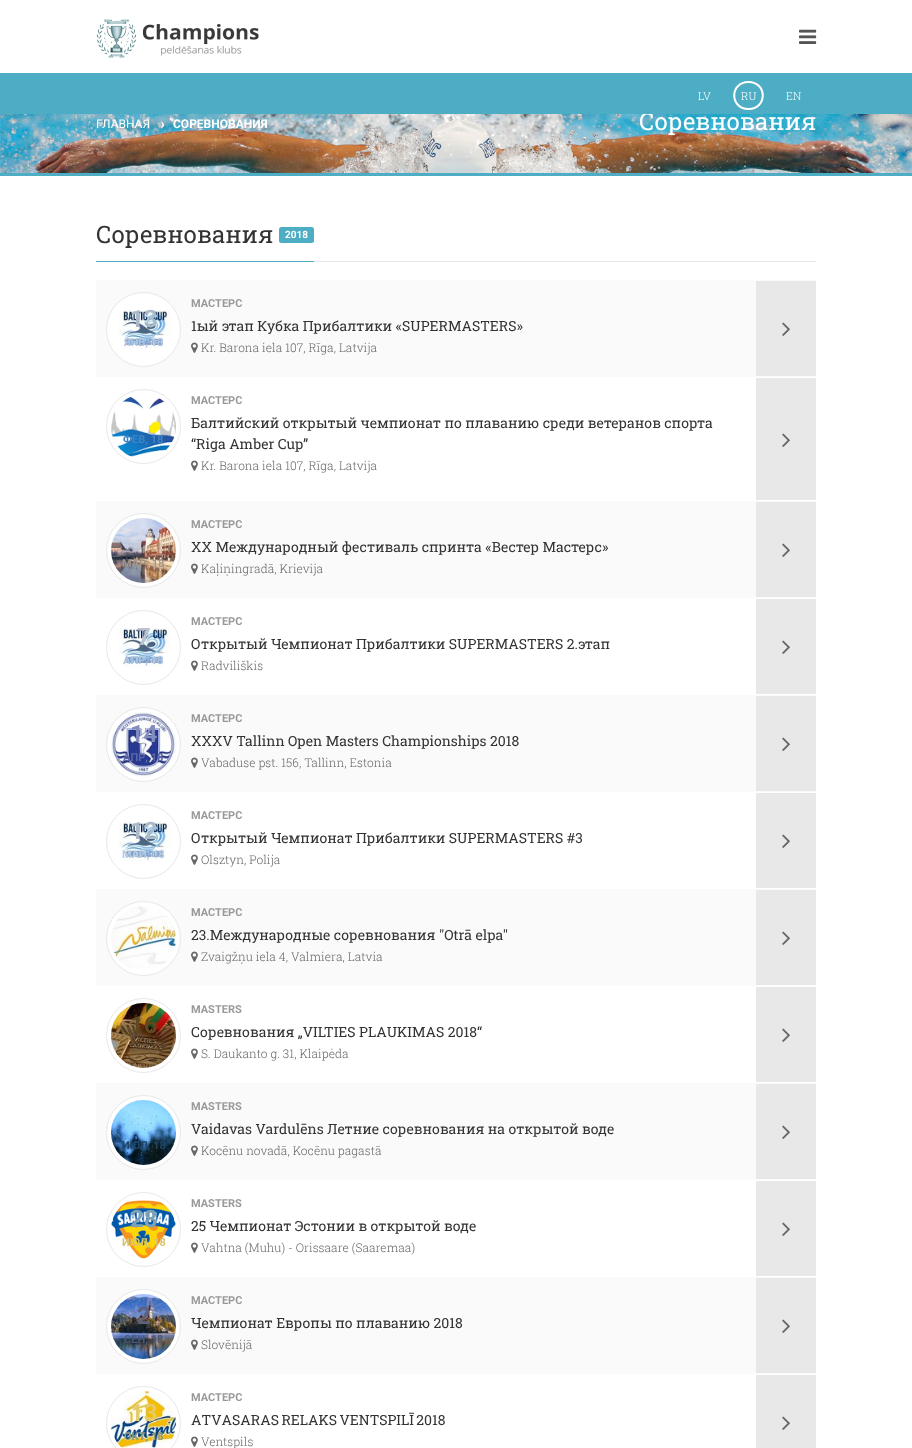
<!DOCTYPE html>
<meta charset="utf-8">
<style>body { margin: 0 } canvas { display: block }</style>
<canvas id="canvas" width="912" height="1448"></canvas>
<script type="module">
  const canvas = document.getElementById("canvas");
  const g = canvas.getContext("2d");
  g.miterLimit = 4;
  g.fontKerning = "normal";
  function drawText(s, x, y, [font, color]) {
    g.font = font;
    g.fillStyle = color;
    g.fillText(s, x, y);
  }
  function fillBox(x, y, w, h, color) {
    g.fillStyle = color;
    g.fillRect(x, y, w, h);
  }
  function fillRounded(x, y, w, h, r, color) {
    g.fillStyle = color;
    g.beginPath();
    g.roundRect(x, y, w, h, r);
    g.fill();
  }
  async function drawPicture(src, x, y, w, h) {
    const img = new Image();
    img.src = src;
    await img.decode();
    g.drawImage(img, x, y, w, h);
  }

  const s1 = ["24px Roboto Slab", "#FFFFFF"];
  const s2 = ["300 11px Roboto Slab", "#FFFFFF"];
  const s3 = ["12px Roboto", "#FFFFFF"];
  const s4 = ["bold 12px Roboto", "#FFFFFF"];
  const s5 = ["24px Roboto Slab", "#333333"];
  const s6 = ["bold 10px Roboto", "#FFFFFF"];
  const s7 = ["bold 11px Roboto", "#999999"];
  const s8 = ["14px Roboto Slab", "#333333"];
  const s9 = ["300 12px Roboto Slab", "#666666"];
  const s10 = ["bold 24px Roboto", "#AABAC8"];
  const s11 = ["bold 11px Roboto", "#AEC4DE"];
  const s12 = ["bold 11px Roboto", "#3F83C2"];
  const s13 = ["bold 11px Roboto", "#A59588"];
  const s14 = ["bold 24px Roboto", "#BAC4CF"];
  const s15 = ["bold 24px Roboto", "#828CBD"];
  const s16 = ["bold 11px Roboto", "#5A67A9"];
  const s17 = ["bold 11px Roboto", "#B6CBE2"];
  const s18 = ["bold 24px Roboto", "#60481E"];
  const s19 = ["bold 11px Roboto", "#204669"];
  const s20 = ["bold 24px Roboto", "#7DA1B7"];
  const s21 = ["bold 11px Roboto", "#DAC36E"];
  const s22 = ["bold 24px Roboto", "#5D6179"];
  const s23 = ["bold 11px Roboto", "#4C5773"];
  const s24 = ["bold 24px Roboto", "#E5CB69"];
  const s25 = ["bold 11px Roboto", "#8E9A81"];

  fillBox(0, 0, 912, 1448, "#FFFFFF");
  await drawPicture("pic1.png", 96, 19, 163, 39);
  await drawPicture("pic2.png", 799, 29, 18, 15);
  await drawPicture("pic3.png", 0, 114, 912, 59);
  drawText("Соревнования", 639, 130, s1);
  fillBox(0, 73, 912, 41, "#4CADC5");
  drawText("LV", 698, 100, s2);
  g.beginPath();
  g.moveTo(748.5, 82);
  g.bezierCurveTo(767.5, 82, 767.5, 109, 748.5, 109);
  g.bezierCurveTo(729.5, 109, 729.5, 82, 748.5, 82);
  g.closePath();
  g.strokeStyle = "#FFFFFF";
  g.lineWidth = 2;
  g.stroke();
  drawText("RU", 741, 100, s2);
  drawText("EN", 786, 100, s2);
  drawText("ГЛАВНАЯ", 96, 128, s3);
  drawText("›", 161, 128, s4);
  drawText("СОРЕВНОВАНИЯ", 173, 128, s4);
  fillBox(0, 173, 912, 3, "#4CADC5");
  fillBox(314, 261, 502, 1, "#E8E8E8");
  fillBox(96, 261, 218, 1, "#4CADC5");
  drawText("Соревнования", 96, 243, s5);
  fillRounded(279, 227, 35, 16, 2.5, "#4CADC5");
  drawText("2018", 285, 238, s6);
  fillBox(96, 280, 720, 97, "#FAFAFA");
  g.fillStyle = "#FFFFFF";
  g.beginPath();
  g.arc(143.5, 329.5, 37, 0, Math.PI * 2);
  g.fill();
  g.strokeStyle = "#E8E8E8";
  g.lineWidth = 1;
  g.stroke();
  await drawPicture("pic4.png", 118, 310, 57, 39);
  drawText("МАСТЕРС", 191, 307, s7);
  drawText("1ый этап Кубка Прибалтики «SUPERMASTERS»", 191, 331, s8);
  await drawPicture("pic5.png", 191, 342, 7, 11);
  drawText("Kr. Barona iela 107, Rīga, Latvija", 201, 352, s9);
  fillBox(756, 281, 60, 95, "#E8E8E8");
  await drawPicture("pic6.png", 782, 322, 8, 14);
  drawText("13", 130, 327, s10);
  drawText("ЯНВ, 18", 124, 346, s11);
  g.beginPath();
  g.arc(143.5, 426.5, 37, 0, Math.PI * 2);
  g.stroke();
  await drawPicture("pic7.png", 111, 396, 65, 61);
  drawText("МАСТЕРС", 191, 404, s7);
  drawText("Балтийский открытый чемпионат по плаванию среди ветеранов спорта", 191, 428, s8);
  drawText("“Riga Amber Cup”", 191, 449, s8);
  await drawPicture("pic8.png", 191, 460, 7, 11);
  drawText("Kr. Barona iela 107, Rīga, Latvija", 201, 470, s9);
  fillBox(756, 378, 60, 122, "#E8E8E8");
  await drawPicture("pic6.png", 782, 433, 8, 14);
  drawText("ФЕВ, 18", 123, 443, s12);
  fillBox(96, 501, 720, 97, "#FAFAFA");
  g.fillStyle = "#FFFFFF";
  g.beginPath();
  g.arc(143.5, 550.5, 37, 0, Math.PI * 2);
  g.fill();
  g.stroke();
  await drawPicture("pic9.png", 111, 518, 65, 65);
  drawText("МАСТЕРС", 191, 528, s7);
  drawText("XX Международный фестиваль спринта «Вестер Мастерс»", 191, 552, s8);
  await drawPicture("pic5.png", 191, 563, 7, 11);
  drawText("Kaļiņingradā, Krievija", 201, 573, s9);
  fillBox(756, 502, 60, 95, "#E8E8E8");
  await drawPicture("pic6.png", 782, 543, 8, 14);
  drawText("МАР, 18", 122, 567, s13);
  g.beginPath();
  g.arc(143.5, 647.5, 37, 0, Math.PI * 2);
  g.stroke();
  await drawPicture("pic4.png", 118, 628, 57, 39);
  drawText("МАСТЕРС", 191, 625, s7);
  drawText("Открытый Чемпионат Прибалтики SUPERMASTERS 2.этап", 191, 649, s8);
  await drawPicture("pic8.png", 191, 660, 7, 11);
  drawText("Radviliškis", 201, 670, s9);
  fillBox(756, 599, 60, 95, "#E8E8E8");
  await drawPicture("pic6.png", 782, 640, 8, 14);
  drawText("7", 137, 645, s14);
  drawText("АПР, 18", 123, 664, s11);
  fillBox(96, 695, 720, 97, "#FAFAFA");
  g.fillStyle = "#FFFFFF";
  g.beginPath();
  g.arc(143.5, 744.5, 37, 0, Math.PI * 2);
  g.fill();
  g.stroke();
  await drawPicture("pic10.png", 111, 712, 65, 65);
  drawText("МАСТЕРС", 191, 722, s7);
  drawText("XXXV Tallinn Open Masters Championships 2018", 191, 746, s8);
  await drawPicture("pic5.png", 191, 757, 7, 11);
  drawText("Vabaduse pst. 156, Tallinn, Estonia", 201, 767, s9);
  fillBox(756, 696, 60, 95, "#E8E8E8");
  await drawPicture("pic6.png", 782, 737, 8, 14);
  drawText("14", 130, 742, s15);
  drawText("АПР, 18", 123, 761, s16);
  g.beginPath();
  g.arc(143.5, 841.5, 37, 0, Math.PI * 2);
  g.stroke();
  await drawPicture("pic11.png", 118, 822, 57, 39);
  drawText("МАСТЕРС", 191, 819, s7);
  drawText("Открытый Чемпионат Прибалтики SUPERMASTERS #3", 191, 843, s8);
  await drawPicture("pic8.png", 191, 854, 7, 11);
  drawText("Olsztyn, Polija", 201, 864, s9);
  fillBox(756, 793, 60, 95, "#E8E8E8");
  await drawPicture("pic6.png", 782, 834, 8, 14);
  drawText("12", 130, 839, s10);
  drawText("МАЙ, 18", 122, 858, s17);
  fillBox(96, 889, 720, 97, "#FAFAFA");
  g.fillStyle = "#FFFFFF";
  g.beginPath();
  g.arc(143.5, 938.5, 37, 0, Math.PI * 2);
  g.fill();
  g.stroke();
  await drawPicture("pic12.png", 111, 906, 65, 62);
  drawText("МАСТЕРС", 191, 916, s7);
  drawText("23.Международные соревнования \"Otrā elpa\"", 191, 940, s8);
  await drawPicture("pic5.png", 191, 951, 7, 11);
  drawText("Zvaigžņu iela 4, Valmiera, Latvia", 201, 961, s9);
  fillBox(756, 890, 60, 95, "#E8E8E8");
  await drawPicture("pic6.png", 782, 931, 8, 14);
  g.beginPath();
  g.arc(143.5, 1035.5, 37, 0, Math.PI * 2);
  g.stroke();
  await drawPicture("pic13.png", 111, 1003, 65, 65);
  drawText("MASTERS", 191, 1013, s7);
  drawText("Соревнования „VILTIES PLAUKIMAS 2018“", 191, 1037, s8);
  await drawPicture("pic8.png", 191, 1048, 7, 11);
  drawText("S. Daukanto g. 31, Klaipėda", 201, 1058, s9);
  fillBox(756, 987, 60, 95, "#E8E8E8");
  await drawPicture("pic6.png", 782, 1028, 8, 14);
  drawText("16", 130, 1033, s18);
  fillBox(96, 1083, 720, 97, "#FAFAFA");
  g.fillStyle = "#FFFFFF";
  g.beginPath();
  g.arc(143.5, 1132.5, 37, 0, Math.PI * 2);
  g.fill();
  g.stroke();
  await drawPicture("pic14.png", 111, 1100, 65, 65);
  drawText("MASTERS", 191, 1110, s7);
  drawText("Vaidavas Vardulēns Летние соревнования на открытой воде", 191, 1134, s8);
  await drawPicture("pic5.png", 191, 1145, 7, 11);
  drawText("Kocēnu novadā, Kocēnu pagastā", 201, 1155, s9);
  fillBox(756, 1084, 60, 95, "#E8E8E8");
  await drawPicture("pic6.png", 782, 1125, 8, 14);
  drawText("ИЮЛ, 18", 122, 1149, s19);
  g.beginPath();
  g.arc(143.5, 1229.5, 37, 0, Math.PI * 2);
  g.stroke();
  await drawPicture("pic15.png", 111, 1200, 65, 59);
  drawText("MASTERS", 191, 1207, s7);
  drawText("25 Чемпионат Эстонии в открытой воде", 191, 1231, s8);
  await drawPicture("pic8.png", 191, 1242, 7, 11);
  drawText("Vahtna (Muhu) - Orissaare (Saaremaa)", 201, 1252, s9);
  fillBox(756, 1181, 60, 95, "#E8E8E8");
  await drawPicture("pic6.png", 782, 1222, 8, 14);
  drawText("28", 130, 1227, s20);
  drawText("ИЮЛ, 18", 122, 1246, s21);
  fillBox(96, 1277, 720, 97, "#FAFAFA");
  g.fillStyle = "#FFFFFF";
  g.beginPath();
  g.arc(143.5, 1326.5, 37, 0, Math.PI * 2);
  g.fill();
  g.stroke();
  await drawPicture("pic16.png", 111, 1294, 65, 65);
  drawText("МАСТЕРС", 191, 1304, s7);
  drawText("Чемпионат Европы по плаванию 2018", 191, 1328, s8);
  await drawPicture("pic5.png", 191, 1339, 7, 11);
  drawText("Slovēnijā", 201, 1349, s9);
  fillBox(756, 1278, 60, 95, "#E8E8E8");
  await drawPicture("pic6.png", 782, 1319, 8, 14);
  drawText("2", 137, 1324, s22);
  drawText("СЕН, 18", 124, 1343, s23);
  g.beginPath();
  g.arc(143.5, 1423.5, 37, 0, Math.PI * 2);
  g.stroke();
  await drawPicture("pic17.png", 111, 1391, 65, 57);
  drawText("МАСТЕРС", 191, 1401, s7);
  g.wordSpacing = "-1px";
  drawText("ATVASARAS RELAKS VENTSPILĪ 2018", 191, 1425, s8);
  await drawPicture("pic8.png", 191, 1436, 7, 11);
  g.wordSpacing = "0px";
  drawText("Ventspils", 201, 1446, s9);
  fillBox(756, 1375, 60, 73, "#E8E8E8");
  await drawPicture("pic6.png", 782, 1416, 8, 14);
  drawText("13", 130, 1421, s24);
  drawText("ОКТ, 18", 124, 1440, s25);
</script>
